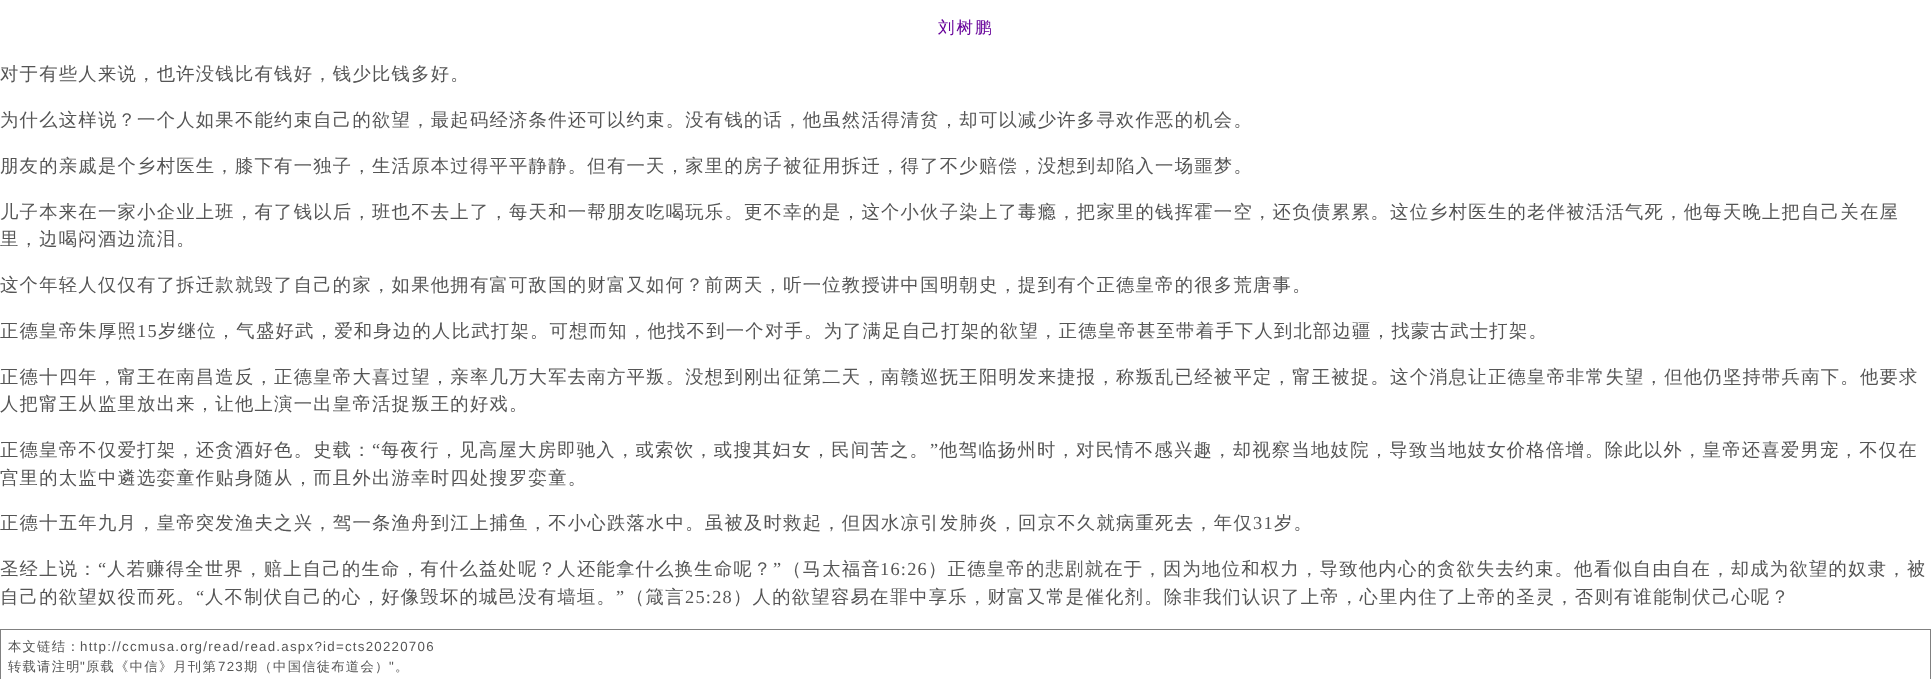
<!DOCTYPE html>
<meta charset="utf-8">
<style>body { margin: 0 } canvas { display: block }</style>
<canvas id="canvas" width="1931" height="679"></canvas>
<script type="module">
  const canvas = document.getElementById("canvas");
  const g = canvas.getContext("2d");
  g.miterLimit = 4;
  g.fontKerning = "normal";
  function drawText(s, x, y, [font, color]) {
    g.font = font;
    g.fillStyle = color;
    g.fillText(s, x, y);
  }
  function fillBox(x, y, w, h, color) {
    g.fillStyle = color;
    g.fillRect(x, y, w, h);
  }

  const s1 = ["500 16.5px WenQuanYi Zen Hei", "#660099"];
  const s2 = ["500 18.33px WenQuanYi Zen Hei", "#555555"];
  const s3 = ["18.33px Liberation Serif", "#555555"];
  const s4 = ["500 13.3px WenQuanYi Zen Hei", "#555555"];
  const s5 = ["13.3px Liberation Sans", "#555555"];

  fillBox(0, 0, 1931, 679, "#FFFFFF");
  g.letterSpacing = "2px";
  drawText("刘树鹏", 938, 33, s1);
  g.letterSpacing = "1.25px";
  drawText("对于有些人来说，也许没钱比有钱好，钱少比钱多好。", 0, 80, s2);
  drawText("为什么这样说？一个人如果不能约束自己的欲望，最起码经济条件还可以约束。没有钱的话，他虽然活得清贫，却可以减少许多寻欢作恶的机会。", 0, 126, s2);
  drawText("朋友的亲戚是个乡村医生，膝下有一独子，生活原本过得平平静静。但有一天，家里的房子被征用拆迁，得了不少赔偿，没想到却陷入一场噩梦。", 0, 172, s2);
  drawText("儿子本来在一家小企业上班，有了钱以后，班也不去上了，每天和一帮朋友吃喝玩乐。更不幸的是，这个小伙子染上了毒瘾，把家里的钱挥霍一空，还负债累累。这位乡村医生的老伴被活活气死，他每天晚上把自己关在屋", 0, 218, s2);
  drawText("里，边喝闷酒边流泪。", 0, 245, s2);
  drawText("这个年轻人仅仅有了拆迁款就毁了自己的家，如果他拥有富可敌国的财富又如何？前两天，听一位教授讲中国明朝史，提到有个正德皇帝的很多荒唐事。", 0, 291, s2);
  drawText("正德皇帝朱厚照", 0, 337, s2);
  drawText("15", 137, 337, s3);
  drawText("岁继位，气盛好武，爱和身边的人比武打架。可想而知，他找不到一个对手。为了满足自己打架的欲望，正德皇帝甚至带着手下人到北部边疆，找蒙古武士打架。", 158, 337, s2);
  drawText("正德十四年，甯王在南昌造反，正德皇帝大喜过望，亲率几万大军去南方平叛。没想到刚出征第二天，南赣巡抚王阳明发来捷报，称叛乱已经被平定，甯王被捉。这个消息让正德皇帝非常失望，但他仍坚持带兵南下。他要求", 0, 383, s2);
  drawText("人把甯王从监里放出来，让他上演一出皇帝活捉叛王的好戏。", 0, 410, s2);
  drawText("正德皇帝不仅爱打架，还贪酒好色。史载：", 0, 456, s2);
  drawText("“", 372, 456, s3);
  drawText("每夜行，见高屋大房即驰入，或索饮，或搜其妇女，民间苦之。", 381, 456, s2);
  drawText("”", 930, 456, s3);
  drawText("他驾临扬州时，对民情不感兴趣，却视察当地妓院，导致当地妓女价格倍增。除此以外，皇帝还喜爱男宠，不仅在", 939, 456, s2);
  drawText("宫里的太监中遴选娈童作贴身随从，而且外出游幸时四处搜罗娈童。", 0, 484, s2);
  drawText("正德十五年九月，皇帝突发渔夫之兴，驾一条渔舟到江上捕鱼，不小心跌落水中。虽被及时救起，但因水凉引发肺炎，回京不久就病重死去，年仅", 0, 529, s2);
  drawText("31", 1253, 529, s3);
  drawText("岁。", 1274, 529, s2);
  drawText("圣经上说：", 0, 575, s2);
  drawText("“", 98, 575, s3);
  drawText("人若赚得全世界，赔上自己的生命，有什么益处呢？人还能拿什么换生命呢？", 107, 575, s2);
  drawText("”", 773, 575, s3);
  drawText("（马太福音", 783, 575, s2);
  drawText("16:26", 880, 575, s3);
  drawText("）正德皇帝的悲剧就在于，因为地位和权力，导致他内心的贪欲失去约束。他看似自由自在，却成为欲望的奴隶，被", 928, 575, s2);
  drawText("自己的欲望奴役而死。", 0, 603, s2);
  drawText("“", 196, 603, s3);
  drawText("人不制伏自己的心，好像毁坏的城邑没有墙垣。", 205, 603, s2);
  drawText("”", 616, 603, s3);
  drawText("（箴言", 626, 603, s2);
  drawText("25:28", 685, 603, s3);
  drawText("）人的欲望容易在罪中享乐，财富又常是催化剂。除非我们认识了上帝，心里内住了上帝的圣灵，否则有谁能制伏己心呢？", 733, 603, s2);
  g.strokeStyle = "#808080";
  g.strokeRect(0.5, 629.5, 1930, 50);
  drawText("本文链结：", 8, 651, s4);
  drawText("http://ccmusa.org/read/read.aspx?id=cts20220706", 80, 651, s5);
  drawText("转载请注明", 8, 671, s4);
  drawText("\"", 80, 671, s5);
  drawText("原载《中信》月刊第", 86, 671, s4);
  drawText("723", 218, 671, s5);
  drawText("期（中国信徒布道会）", 244, 671, s4);
  drawText("\"", 389, 671, s5);
  drawText("。", 395, 671, s4);
</script>
